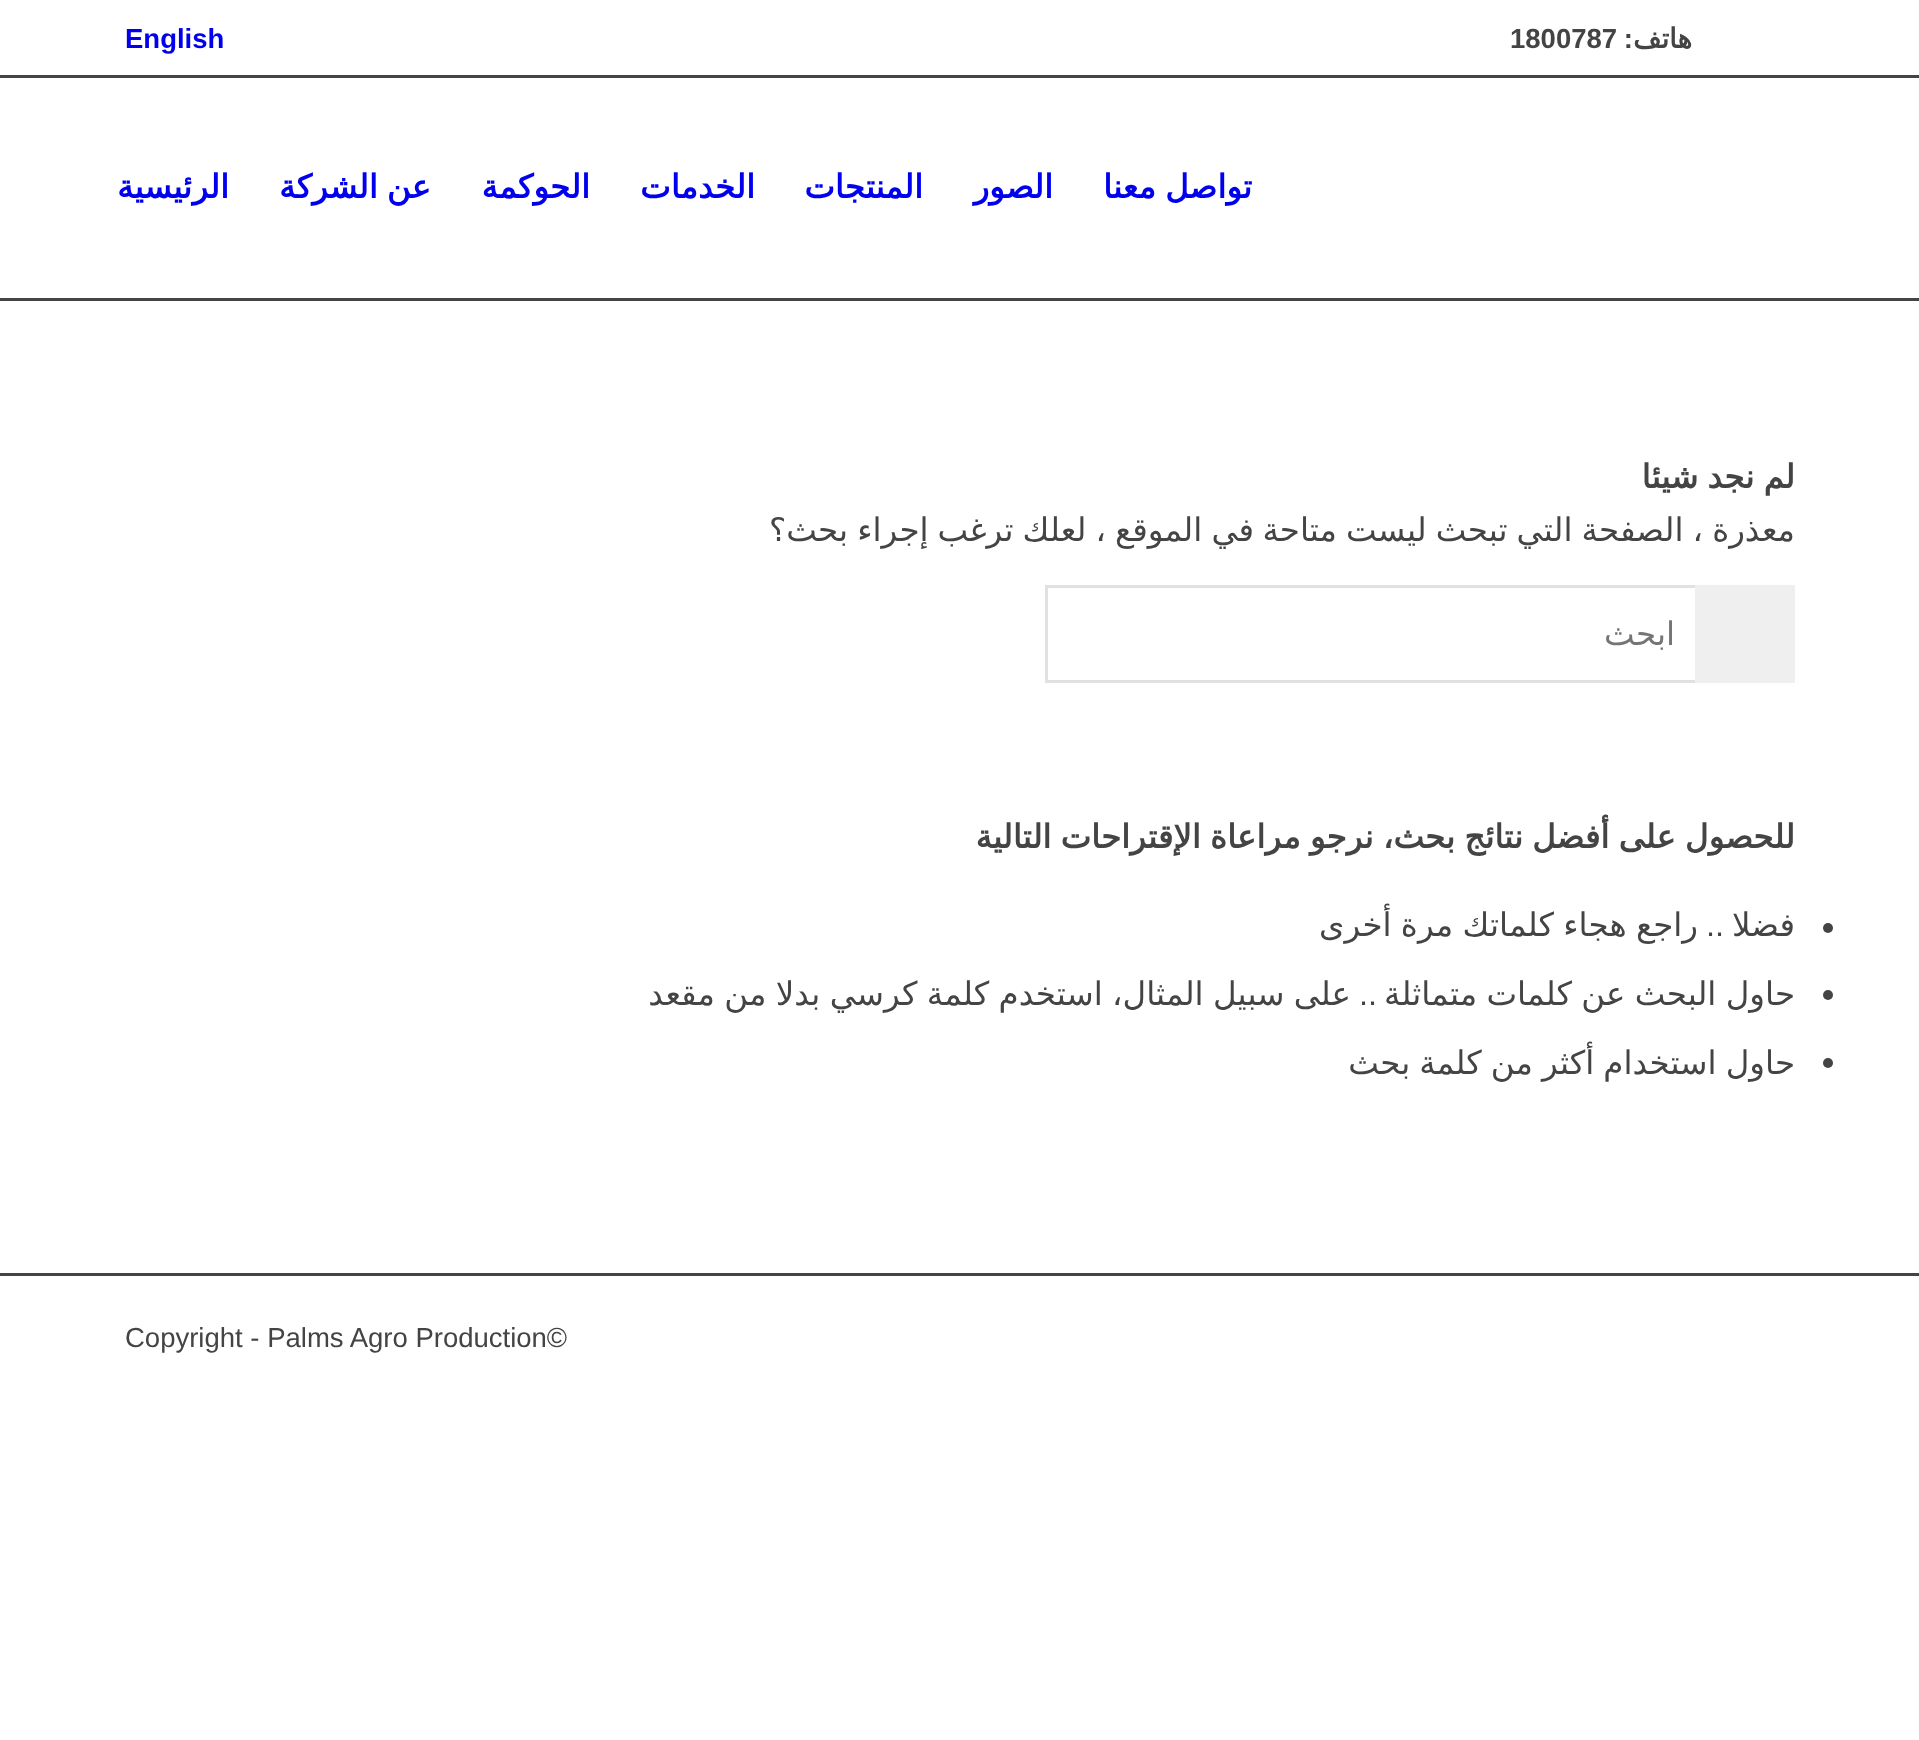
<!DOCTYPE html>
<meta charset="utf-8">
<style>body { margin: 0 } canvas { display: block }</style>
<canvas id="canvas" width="1919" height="1740"></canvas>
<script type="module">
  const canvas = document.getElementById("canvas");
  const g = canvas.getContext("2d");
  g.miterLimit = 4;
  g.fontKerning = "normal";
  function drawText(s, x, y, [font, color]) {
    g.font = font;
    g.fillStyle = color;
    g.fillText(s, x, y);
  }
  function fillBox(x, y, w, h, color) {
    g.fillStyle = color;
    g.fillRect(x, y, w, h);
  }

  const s1 = ["bold 27.5px DejaVu Sans", "#444444"];
  const s2 = ["bold 27.5px Liberation Sans", "#444444"];
  const s3 = ["bold 27.5px Liberation Sans", "#0000EE"];
  const s4 = ["bold 32.5px DejaVu Sans", "#0000EE"];
  const s5 = ["bold 32.5px DejaVu Sans", "#444444"];
  const s6 = ["32.5px DejaVu Sans", "#444444"];
  const s7 = ["32.5px DejaVu Sans", "#757575"];
  const s8 = ["32.5px Liberation Sans", "#444444"];
  const s9 = ["27.5px Liberation Sans", "#444444"];

  fillBox(0, 0, 1919, 1740, "#FFFFFF");
  g.direction = "rtl";
  drawText("هاتف", 1692, 48, s1);
  drawText(":", 1633, 48, s2);
  g.direction = "ltr";
  drawText("1800787", 1510, 48, s2);
  drawText("English", 125, 48, s3);
  fillBox(0, 75, 1919, 3, "#444444");
  fillBox(0, 298, 1919, 3, "#444444");
  g.wordSpacing = "-1.25px";
  g.direction = "rtl";
  drawText("تواصل معنا", 1252, 198, s4);
  g.wordSpacing = "0px";
  drawText("الصور", 1053, 198, s4);
  drawText("المنتجات", 923, 198, s4);
  drawText("الخدمات", 755, 198, s4);
  drawText("الحوكمة", 590, 198, s4);
  g.wordSpacing = "-1.25px";
  drawText("عن الشركة", 431, 198, s4);
  g.wordSpacing = "0px";
  drawText("الرئيسية", 229, 198, s4);
  g.wordSpacing = "-1.25px";
  drawText("لم نجد شيئا", 1795, 488, s5);
  drawText("معذرة ، الصفحة التي تبحث ليست متاحة", 1795, 541, s6);
  drawText("في الموقع ، لعلك ترغب إجراء بحث؟", 1254, 541, s6);
  g.strokeStyle = "#E1E1E1";
  g.lineWidth = 3;
  g.strokeRect(1046.5, 586.5, 747, 95);
  fillBox(1695, 585, 100, 98, "#EFEFEF");
  g.wordSpacing = "0px";
  drawText("ابحث", 1675, 645, s7);
  g.wordSpacing = "-1.25px";
  drawText("للحصول على أفضل نتائج بحث، نرجو مراعاة الإقتراحات التالية", 1795, 848, s5);
  g.beginPath();
  g.arc(1828, 928, 5, 0, Math.PI * 2);
  g.fill();
  g.wordSpacing = "0px";
  drawText("فضلا", 1795, 936, s6);
  g.wordSpacing = "-1px";
  drawText("راجع هجاء كلماتك مرة أخرى", 1698, 936, s6);
  g.wordSpacing = "0px";
  drawText("..", 1724, 936, s8);
  g.beginPath();
  g.arc(1828, 995, 5, 0, Math.PI * 2);
  g.fill();
  g.wordSpacing = "-1px";
  drawText("حاول البحث عن كلمات متماثلة", 1795, 1005, s6);
  drawText("على سبيل المثال، استخدم كلمة كرسي بدلا من مقعد", 1351, 1005, s6);
  g.wordSpacing = "0px";
  drawText("..", 1377, 1005, s8);
  g.beginPath();
  g.arc(1828, 1063, 5, 0, Math.PI * 2);
  g.fill();
  g.wordSpacing = "-1.25px";
  drawText("حاول استخدام أكثر من كلمة بحث", 1795, 1074, s6);
  fillBox(0, 1273, 1919, 3, "#444444");
  g.wordSpacing = "0px";
  g.direction = "ltr";
  drawText("Copyright - Palms Agro Production©", 125, 1347, s9);
</script>
